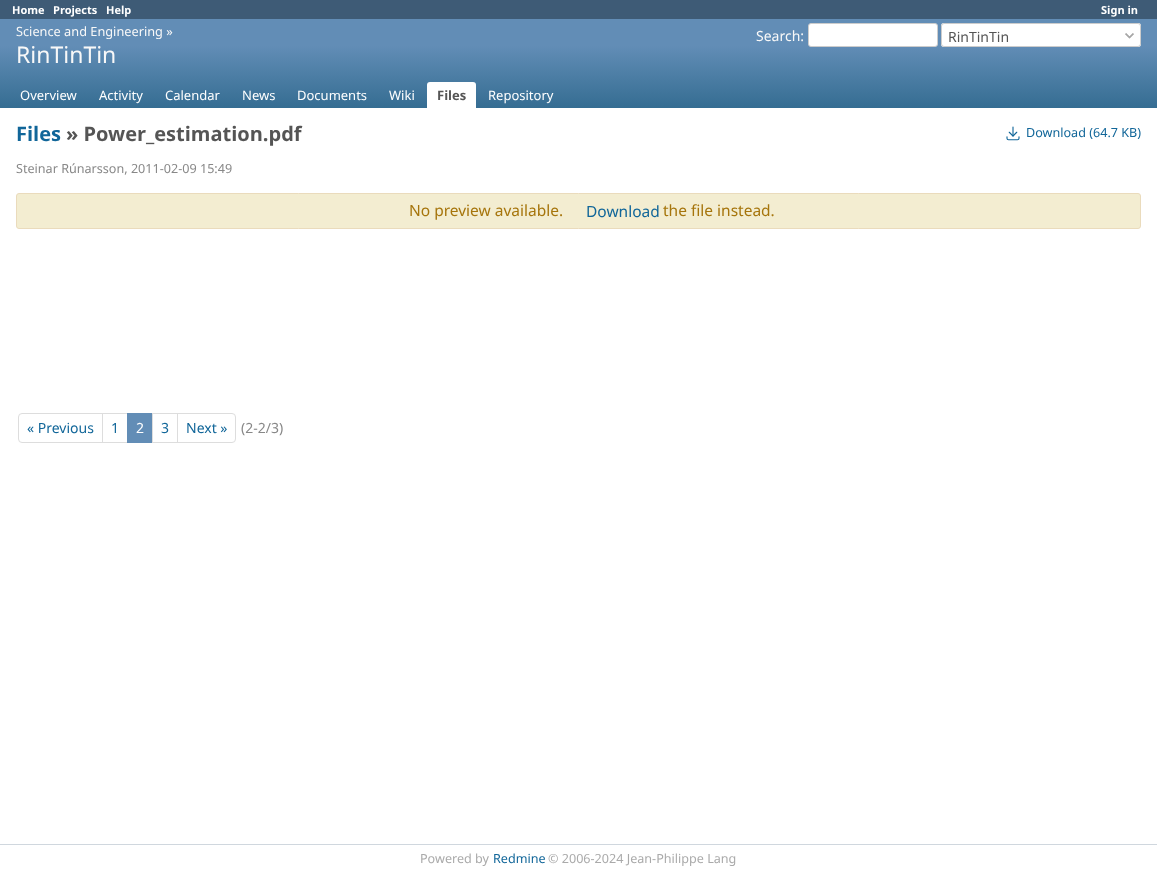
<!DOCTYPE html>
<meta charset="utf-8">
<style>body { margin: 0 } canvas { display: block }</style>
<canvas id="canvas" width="1157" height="872"></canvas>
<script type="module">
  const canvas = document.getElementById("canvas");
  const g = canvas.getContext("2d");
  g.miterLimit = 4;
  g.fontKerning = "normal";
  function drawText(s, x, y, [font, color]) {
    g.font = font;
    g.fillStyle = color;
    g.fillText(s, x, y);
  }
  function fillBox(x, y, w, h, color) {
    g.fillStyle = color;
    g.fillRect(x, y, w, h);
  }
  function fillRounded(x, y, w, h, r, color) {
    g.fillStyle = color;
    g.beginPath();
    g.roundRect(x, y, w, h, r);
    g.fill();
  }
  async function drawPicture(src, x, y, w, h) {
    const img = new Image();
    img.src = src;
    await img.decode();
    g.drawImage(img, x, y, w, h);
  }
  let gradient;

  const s1 = ["bold 11px Noto Sans", "#FFFFFF"];
  const s2 = ["12.75px Noto Sans", "#F8F8F8"];
  const s3 = ["23px Noto Sans", "#F8F8F8"];
  const s4 = ["14px Noto Sans", "#F8F8F8"];
  const s5 = ["14px Noto Sans", "#555555"];
  const s6 = ["13px Noto Sans", "#FFFFFF"];
  const s7 = ["bold 13px Noto Sans", "#555555"];
  const s8 = ["bold 20px Noto Sans", "#116699"];
  const s9 = ["bold 20px Noto Sans", "#555555"];
  const s10 = ["12.6px Noto Sans", "#116699"];
  const s11 = ["12.6px Noto Sans", "#888888"];
  const s12 = ["15.5px Noto Sans", "#A6750C"];
  const s13 = ["15.5px Noto Sans", "#116699"];
  const s14 = ["14px Noto Sans", "#116699"];
  const s15 = ["14px Noto Sans", "#FFFFFF"];
  const s16 = ["14px Noto Sans", "#888888"];
  const s17 = ["12.6px Noto Sans", "#AAAAAA"];

  fillBox(0, 0, 1157, 872, "#FFFFFF");
  fillBox(0, 0, 1157, 19, "#3E5B76");
  drawText("Home", 12, 14, s1);
  drawText("Projects", 53, 14, s1);
  drawText("Help", 106, 14, s1);
  drawText("Sign in", 1101, 14, s1);
  gradient = g.createLinearGradient(579, 19, 579, 108);
  gradient.addColorStop(0.3, "#628DB6");
  gradient.addColorStop(1, "#356D92");
  g.fillStyle = gradient;
  g.fillRect(0, 19, 1157, 89);
  drawText("Science and Engineering »", 16, 36, s2);
  drawText("RinTinTin", 16, 63, s3);
  drawText("Search:", 756, 41, s4);
  g.fillStyle = "#FFFFFF";
  g.beginPath();
  g.roundRect(808.5, 23.5, 129, 23, 2.5);
  g.fill();
  g.strokeStyle = "#CCCCCC";
  g.stroke();
  fillRounded(941, 23, 200, 24, 3, "#FFFFFF");
  await drawPicture("pic1.png", 1125, 33, 9, 6);
  g.beginPath();
  g.roundRect(941.5, 23.5, 199, 23, 2.5);
  g.stroke();
  drawText("RinTinTin", 948, 42, s5);
  drawText("Overview", 20, 100, s6);
  drawText("Activity", 99, 100, s6);
  drawText("Calendar", 165, 100, s6);
  drawText("News", 242, 100, s6);
  drawText("Documents", 297, 100, s6);
  drawText("Wiki", 389, 100, s6);
  g.beginPath();
  g.roundRect(427, 82, 49, 26, [3, 3, 0, 0]);
  g.fill();
  drawText("Files", 437, 100, s7);
  drawText("Repository", 488, 100, s6);
  drawText("Files", 16, 141, s8);
  drawText("» Power_estimation.pdf", 66, 141, s9);
  await drawPicture("pic2.png", 1006, 126, 14, 15);
  drawText("Download (64.7 KB)", 1026, 137, s10);
  drawText("Steinar Rúnarsson, 2011-02-09 15:49", 16, 173, s11);
  g.fillStyle = "#F3EDD1";
  g.beginPath();
  g.roundRect(16.5, 193.5, 1124, 35, 2.5);
  g.fill();
  g.strokeStyle = "#EADBBC";
  g.stroke();
  drawText("No preview available.", 409, 216, s12);
  drawText("Download", 586, 217, s13);
  drawText("the file instead.", 663, 216, s12);
  g.beginPath();
  g.roundRect(18.5, 413.5, 84, 29, [3.5, 0, 0, 3.5]);
  g.strokeStyle = "#DDDDDD";
  g.stroke();
  drawText("« Previous", 27, 433, s14);
  g.strokeRect(102.5, 413.5, 25, 29);
  drawText("1", 111, 433, s14);
  fillBox(127, 413, 25, 30, "#628DB6");
  drawText("2", 136, 433, s15);
  g.strokeRect(152.5, 413.5, 25, 29);
  drawText("3", 161, 433, s14);
  g.beginPath();
  g.roundRect(177.5, 413.5, 58, 29, [0, 3.5, 3.5, 0]);
  g.stroke();
  drawText("Next »", 186, 433, s14);
  drawText("(2-2/3)", 241, 433, s16);
  fillBox(0, 844, 1157, 1, "#D0D7DE");
  drawText("Powered by", 420, 863, s17);
  drawText("Redmine", 493, 863, s10);
  drawText("© 2006-2024 Jean-Philippe Lang", 548, 863, s17);
</script>
